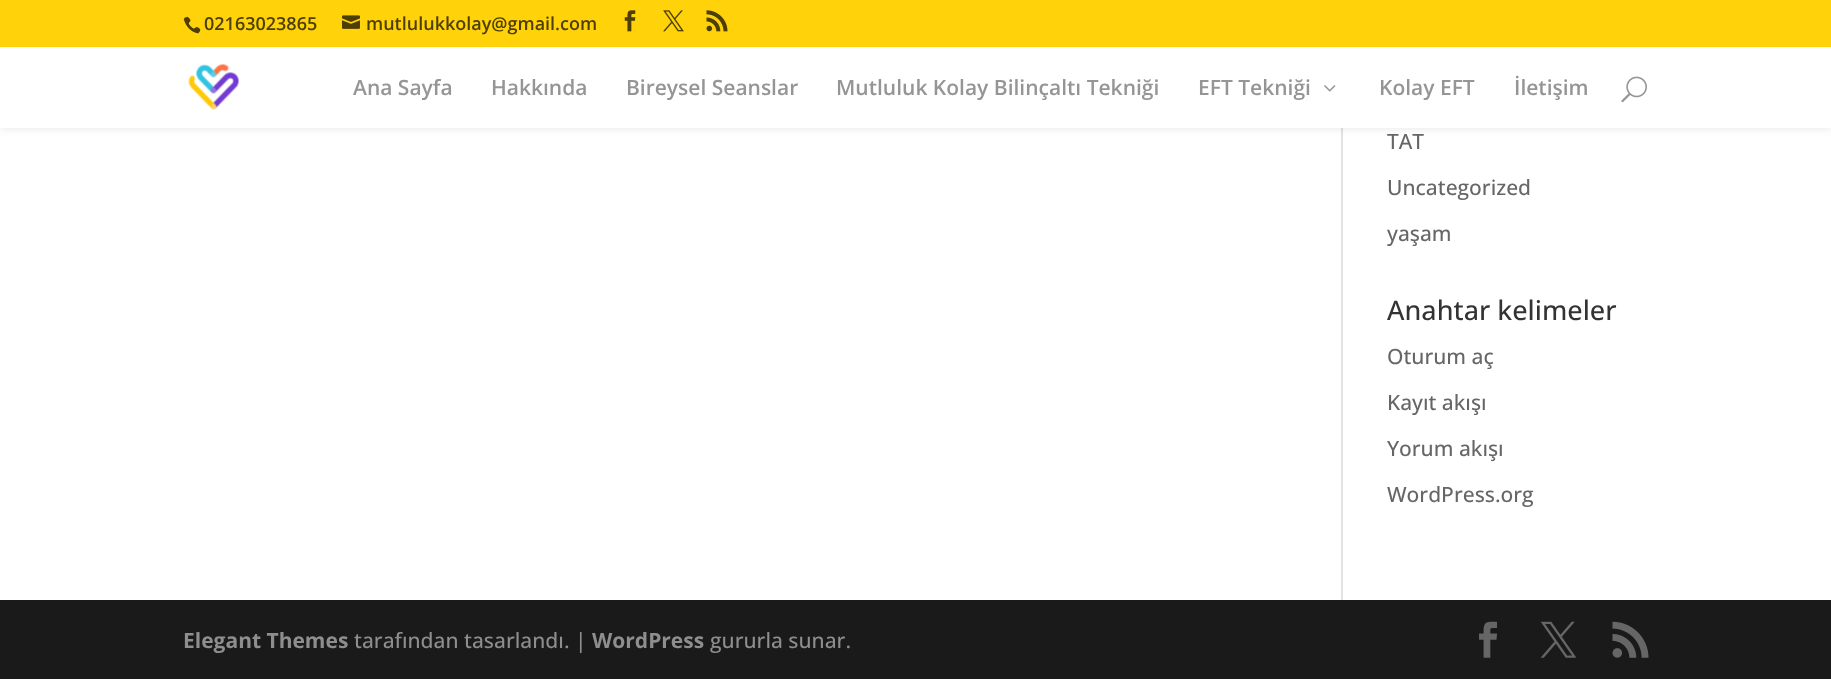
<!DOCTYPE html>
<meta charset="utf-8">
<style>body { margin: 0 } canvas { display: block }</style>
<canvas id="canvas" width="1831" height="679"></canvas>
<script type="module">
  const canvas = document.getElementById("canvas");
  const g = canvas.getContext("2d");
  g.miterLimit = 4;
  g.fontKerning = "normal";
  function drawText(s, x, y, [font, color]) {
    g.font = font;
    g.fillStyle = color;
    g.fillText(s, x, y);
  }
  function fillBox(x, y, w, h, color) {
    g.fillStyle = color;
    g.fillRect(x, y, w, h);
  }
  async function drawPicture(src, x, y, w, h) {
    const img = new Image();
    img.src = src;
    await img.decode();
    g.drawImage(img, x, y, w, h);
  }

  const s1 = ["600 18px Open Sans", "#4D3F03"];
  const s2 = ["600 21px Open Sans", "#959595"];
  const s3 = ["500 21px Open Sans", "#666666"];
  const s4 = ["500 27px Open Sans", "#333333"];
  const s5 = ["bold 21px Open Sans", "#8E8E8E"];
  const s6 = ["500 21px Open Sans", "#8E8E8E"];

  fillBox(0, 0, 1831, 679, "#FFFFFF");
  fillBox(1341, 128, 2, 472, "#E2E2E2");
  g.fillStyle = "rgba(0, 0, 0, 0.1)";
  g.filter = "blur(5px)";
  g.beginPath();
  g.rect(0, 47, 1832, 81);
  g.fill();
  g.filter = "none";
  fillBox(0, 0, 1831, 47, "#FFD20A");
  await drawPicture("pic1.png", 183, 16, 18, 18);
  drawText("02163023865", 204, 30, s1);
  await drawPicture("pic2.png", 342, 15, 18, 14);
  drawText("mutlulukkolay@gmail.com", 366, 30, s1);
  await drawPicture("pic3.png", 624, 10, 12, 22);
  await drawPicture("pic4.png", 663, 10, 21, 22);
  await drawPicture("pic5.png", 706, 10, 22, 22);
  fillBox(0, 47, 1831, 81, "#FFFFFF");
  await drawPicture("pic6.png", 188, 64, 51, 46);
  drawText("Ana Sayfa", 353, 95, s2);
  drawText("Hakkında", 491, 95, s2);
  drawText("Bireysel Seanslar", 626, 95, s2);
  drawText("Mutluluk Kolay Bilinçaltı Tekniği", 836, 95, s2);
  drawText("EFT Tekniği", 1198, 95, s2);
  await drawPicture("pic7.png", 1324, 85, 12, 7);
  drawText("Kolay EFT", 1379, 95, s2);
  drawText("İletişim", 1514, 95, s2);
  await drawPicture("pic8.png", 1621, 76, 26, 27);
  drawText("TAT", 1387, 149, s3);
  drawText("Uncategorized", 1387, 195, s3);
  drawText("yaşam", 1387, 241, s3);
  drawText("Anahtar kelimeler", 1387, 320, s4);
  drawText("Oturum aç", 1387, 364, s3);
  drawText("Kayıt akışı", 1387, 410, s3);
  drawText("Yorum akışı", 1387, 456, s3);
  drawText("WordPress.org", 1387, 502, s3);
  fillBox(0, 600, 1831, 79, "#1A1A1A");
  drawText("Elegant Themes", 183, 648, s5);
  drawText("tarafından tasarlandı. |", 354, 648, s6);
  drawText("WordPress", 592, 648, s5);
  drawText("gururla sunar.", 710, 648, s6);
  await drawPicture("pic9.png", 1479, 621, 18, 37);
  await drawPicture("pic10.png", 1540, 621, 37, 37);
  await drawPicture("pic11.png", 1612, 621, 37, 37);
</script>
